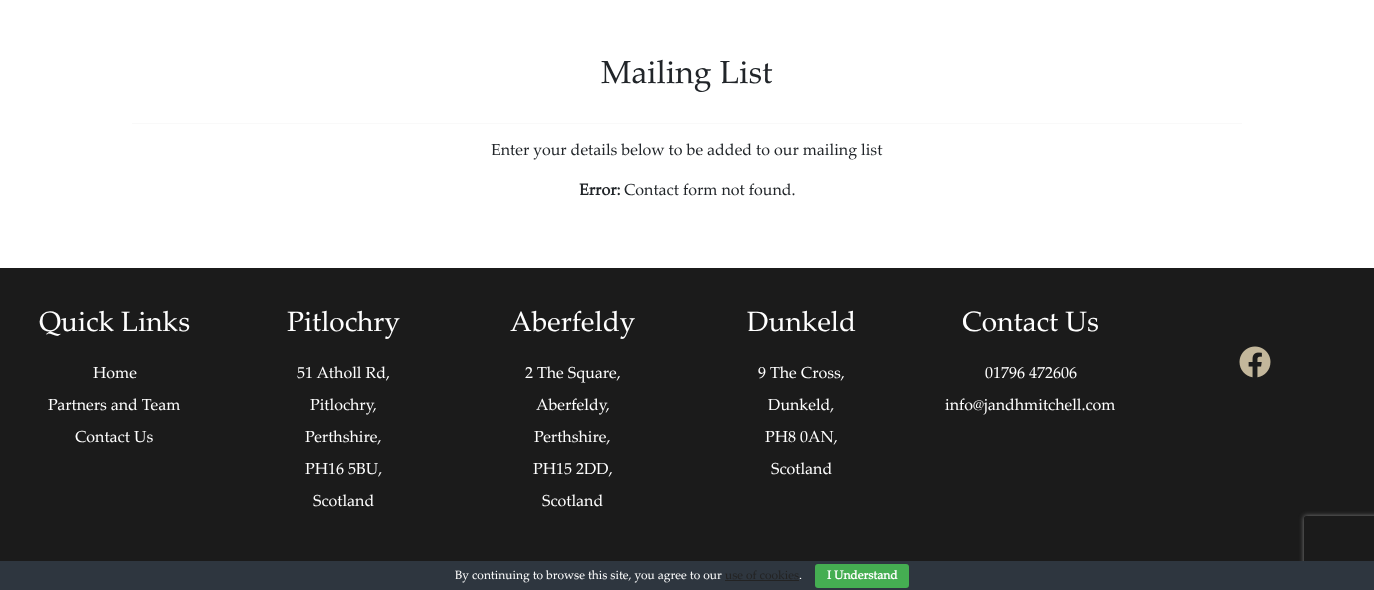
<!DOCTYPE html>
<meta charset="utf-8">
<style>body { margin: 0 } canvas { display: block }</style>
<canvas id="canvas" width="1374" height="590"></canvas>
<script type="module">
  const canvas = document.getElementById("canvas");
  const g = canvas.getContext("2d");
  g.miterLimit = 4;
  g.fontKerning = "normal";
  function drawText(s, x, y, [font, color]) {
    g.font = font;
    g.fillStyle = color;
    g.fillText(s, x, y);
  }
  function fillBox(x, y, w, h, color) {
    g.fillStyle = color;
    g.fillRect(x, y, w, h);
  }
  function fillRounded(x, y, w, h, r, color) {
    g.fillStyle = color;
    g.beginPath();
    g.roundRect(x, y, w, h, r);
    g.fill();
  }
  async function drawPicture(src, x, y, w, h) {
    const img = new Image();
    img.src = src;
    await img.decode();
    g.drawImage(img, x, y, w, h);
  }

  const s1 = ["32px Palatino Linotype", "#212529"];
  const s2 = ["16px Palatino Linotype", "#212529"];
  const s3 = ["bold 16px Palatino Linotype", "#212529"];
  const s4 = ["28px Palatino Linotype", "#FFFFFF"];
  const s5 = ["16px Palatino Linotype", "#FFFFFF"];
  const s6 = ["12px Palatino Linotype", "#FFFFFF"];
  const s7 = ["12px Palatino Linotype", "#232323"];
  const s8 = ["bold 12px Palatino Linotype", "#FFFFFF"];

  fillBox(0, 0, 1374, 590, "#FFFFFF");
  drawText("Mailing List", 601, 83, s1);
  fillBox(132, 123, 1110, 1, "#F9F9F9");
  drawText("Enter your details below to be added to our mailing list", 491, 155, s2);
  drawText("Error:", 579, 195, s3);
  drawText("Contact form not found.", 624, 195, s2);
  fillBox(0, 268, 1374, 293, "#1B1B1B");
  drawText("Quick Links", 39, 331, s4);
  drawText("Home", 93, 378, s5);
  drawText("Partners and Team", 48, 410, s5);
  drawText("Contact Us", 75, 442, s5);
  drawText("Pitlochry", 287, 331, s4);
  drawText("51 Atholl Rd,", 297, 378, s5);
  drawText("Pitlochry,", 310, 410, s5);
  drawText("Perthshire,", 305, 442, s5);
  drawText("PH16 5BU,", 305, 474, s5);
  drawText("Scotland", 313, 506, s5);
  drawText("Aberfeldy", 510, 331, s4);
  drawText("2 The Square,", 525, 378, s5);
  drawText("Aberfeldy,", 536, 410, s5);
  drawText("Perthshire,", 534, 442, s5);
  drawText("PH15 2DD,", 533, 474, s5);
  drawText("Scotland", 542, 506, s5);
  drawText("Dunkeld", 747, 331, s4);
  drawText("9 The Cross,", 758, 378, s5);
  drawText("Dunkeld,", 768, 410, s5);
  drawText("PH8 0AN,", 765, 442, s5);
  drawText("Scotland", 771, 474, s5);
  drawText("Contact Us", 962, 331, s4);
  drawText("01796 472606", 985, 378, s5);
  drawText("info@jandhmitchell.com", 945, 410, s5);
  await drawPicture("pic1.png", 1239, 346, 32, 32);
  g.save();
  g.beginPath();
  g.moveTo(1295, 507);
  g.lineTo(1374, 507);
  g.lineTo(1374, 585);
  g.lineTo(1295, 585);
  g.closePath();
  g.moveTo(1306, 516);
  g.lineTo(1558, 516);
  g.bezierCurveTo(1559, 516, 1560, 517, 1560, 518);
  g.lineTo(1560, 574);
  g.bezierCurveTo(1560, 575, 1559, 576, 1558, 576);
  g.lineTo(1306, 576);
  g.bezierCurveTo(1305, 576, 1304, 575, 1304, 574);
  g.lineTo(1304, 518);
  g.bezierCurveTo(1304, 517, 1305, 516, 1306, 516);
  g.closePath();
  g.clip("evenodd");
  g.fillStyle = "#808080";
  g.filter = "blur(2.5px)";
  g.beginPath();
  g.roundRect(1304, 516, 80, 60, 2);
  g.fill();
  g.filter = "none";
  g.restore();
  fillBox(0, 561, 1374, 29, "#2E363F");
  drawText("By continuing to browse this site, you agree to our", 455, 579, s6);
  drawText("use of cookies", 725, 579, s7);
  fillBox(725, 580, 74, 1, "#232323");
  drawText(".", 799, 579, s6);
  fillRounded(815, 564, 94, 24, 3, "#45AE52");
  drawText("I Understand", 827, 579, s8);
</script>
